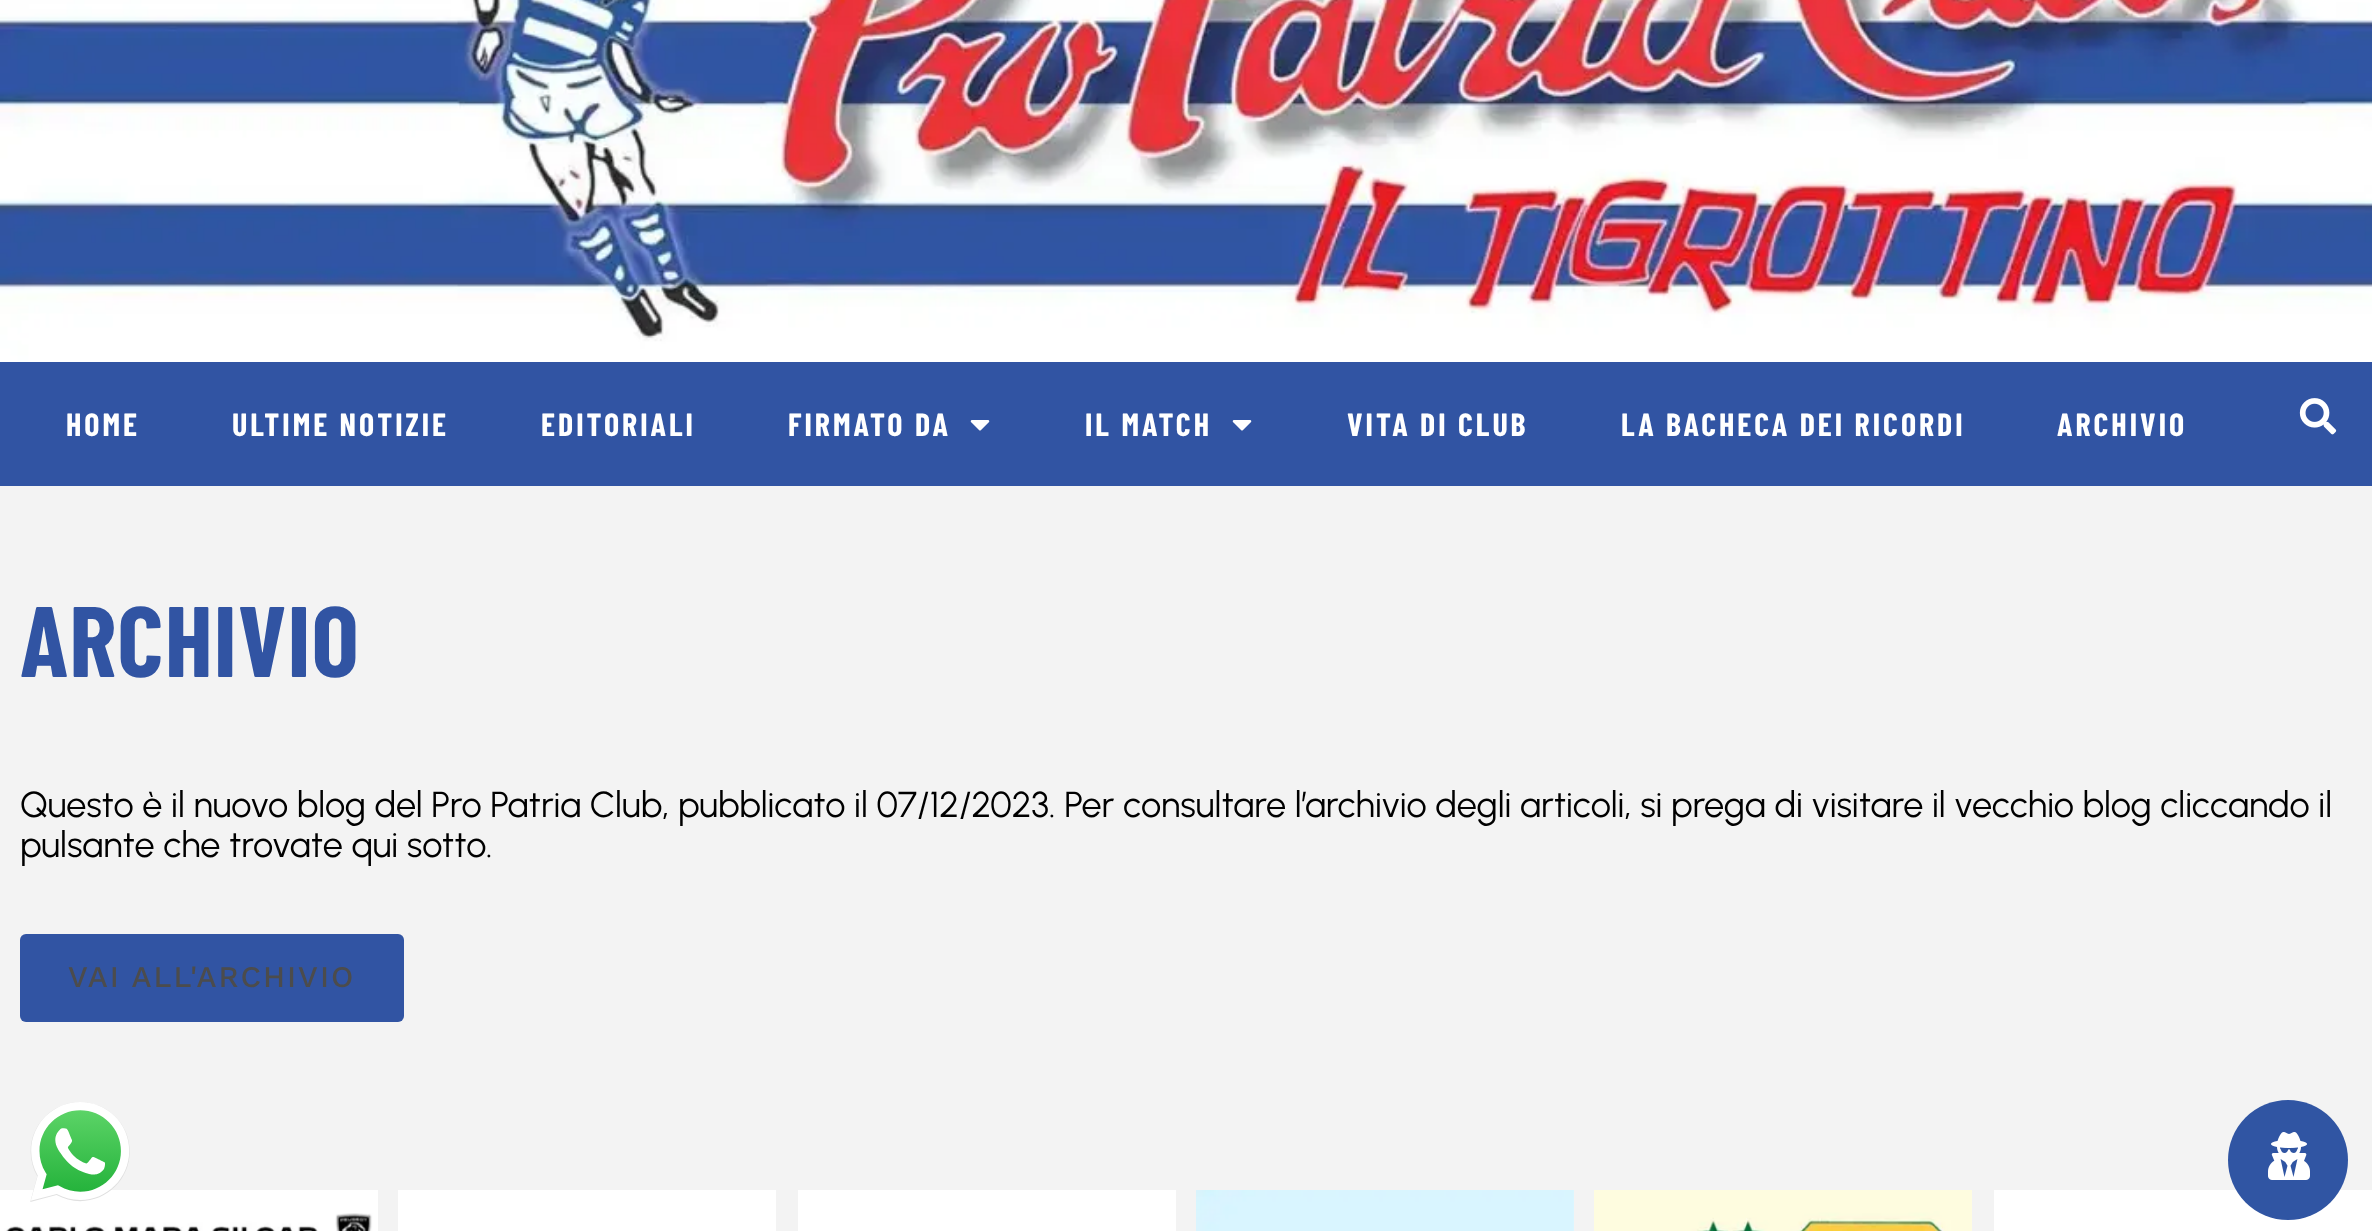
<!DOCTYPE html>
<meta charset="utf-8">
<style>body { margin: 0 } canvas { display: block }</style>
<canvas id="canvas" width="2372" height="1231"></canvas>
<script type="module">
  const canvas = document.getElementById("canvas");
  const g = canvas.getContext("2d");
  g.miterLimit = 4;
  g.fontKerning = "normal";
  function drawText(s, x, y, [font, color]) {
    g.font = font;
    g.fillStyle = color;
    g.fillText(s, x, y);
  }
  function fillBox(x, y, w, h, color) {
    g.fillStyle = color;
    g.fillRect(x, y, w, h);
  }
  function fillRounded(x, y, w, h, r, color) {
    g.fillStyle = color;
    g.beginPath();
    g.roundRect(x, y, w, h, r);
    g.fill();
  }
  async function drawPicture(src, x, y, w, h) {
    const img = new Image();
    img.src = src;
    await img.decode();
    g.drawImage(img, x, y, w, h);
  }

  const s1 = ["bold 32px Barlow Condensed", "#FFFFFF"];
  const s2 = ["bold 100px Barlow Condensed", "#3154A3"];
  const s3 = ["36px Urbanist", "#000000"];
  const s4 = ["500 30px Work Sans", "#4C4C4C"];

  fillBox(0, 0, 2372, 1231, "#F3F3F3");
  await drawPicture("pic1.png", 0, 0, 2372, 362);
  fillBox(0, 362, 2372, 124, "#3154A3");
  g.letterSpacing = "3px";
  drawText("HOME", 66, 436, s1);
  drawText("ULTIME NOTIZIE", 232, 436, s1);
  drawText("EDITORIALI", 541, 436, s1);
  drawText("FIRMATO DA", 788, 436, s1);
  await drawPicture("pic2.png", 970, 420, 20, 11);
  drawText("IL MATCH", 1085, 436, s1);
  await drawPicture("pic2.png", 1232, 420, 20, 11);
  drawText("VITA DI CLUB", 1347, 436, s1);
  drawText("LA BACHECA DEI RICORDI", 1621, 436, s1);
  drawText("ARCHIVIO", 2057, 436, s1);
  await drawPicture("pic3.png", 2299, 398, 38, 37);
  g.letterSpacing = "1px";
  drawText("ARCHIVIO", 20, 677, s2);
  g.letterSpacing = "0px";
  drawText("Questo è il nuovo blog del Pro Patria Club, pubblicato il 07/12/2023. Per consultare l’archivio degli articoli, si prega di visitare il vecchio blog cliccando il", 20, 817, s3);
  drawText("pulsante che trovate qui sotto.", 20, 857, s3);
  fillRounded(20, 934, 384, 88, 6, "#3154A3");
  g.letterSpacing = "2px";
  drawText("VAI ALL'ARCHIVIO", 68, 987, s4);
  await drawPicture("pic6.png", 0, 1190, 378, 41);
  await drawPicture("pic4.png", 30, 1102, 100, 100);
  fillBox(1994, 1190, 378, 41, "#FFFFFF");
  g.fillStyle = "#3055A3";
  g.beginPath();
  g.arc(2288, 1160, 60, 0, Math.PI * 2);
  g.fill();
  await drawPicture("pic5.png", 2268, 1132, 42, 48);
  fillBox(398, 1190, 378, 41, "#FFFFFF");
  fillBox(798, 1190, 378, 41, "#FFFFFF");
  await drawPicture("pic7.png", 1196, 1190, 378, 41);
  await drawPicture("pic8.png", 1594, 1190, 378, 41);
</script>
